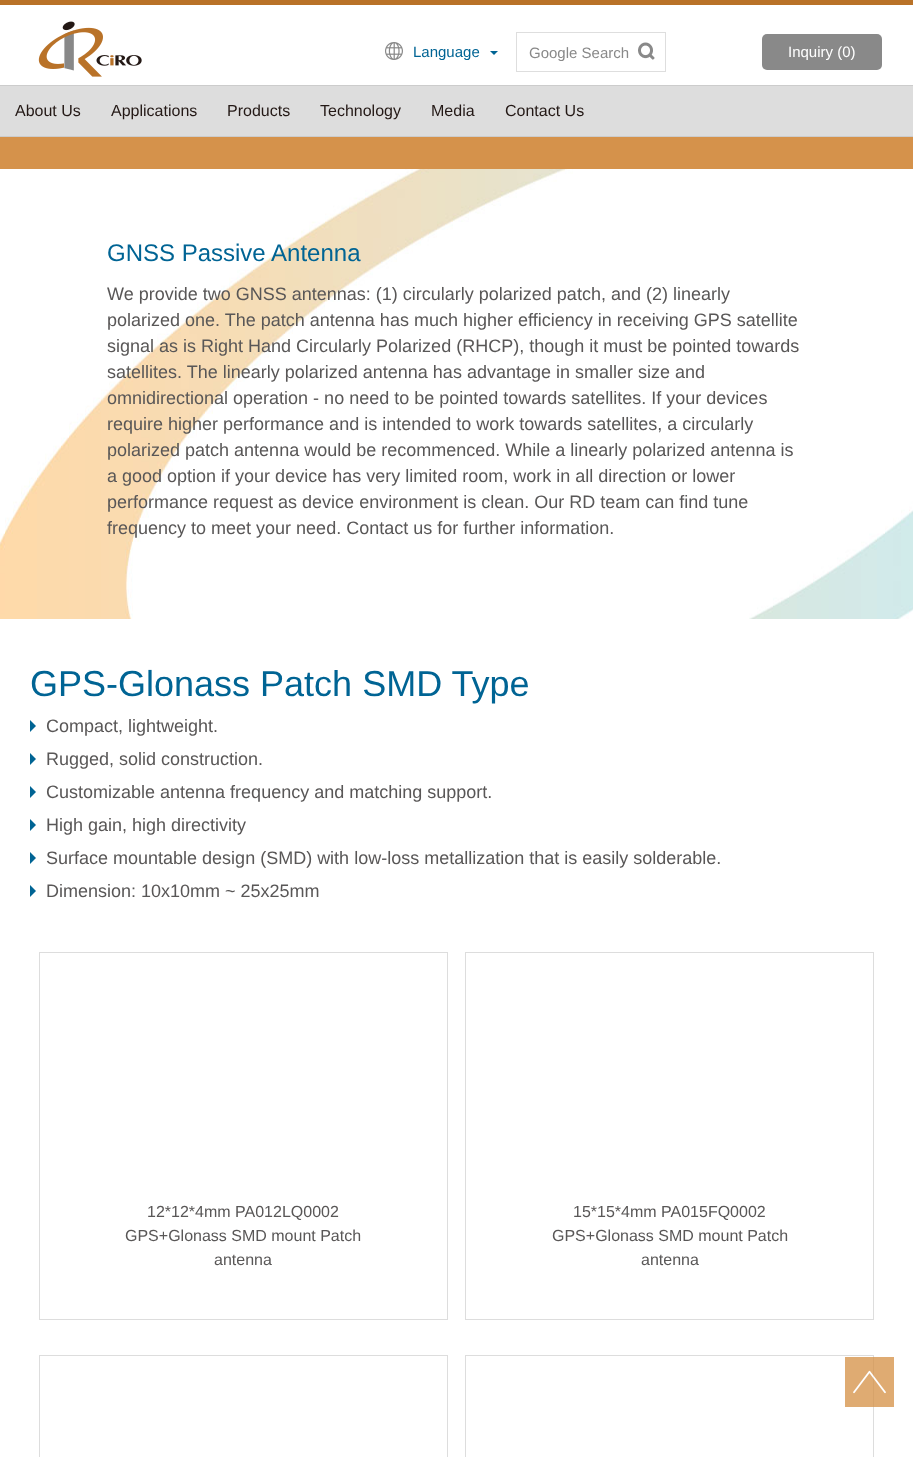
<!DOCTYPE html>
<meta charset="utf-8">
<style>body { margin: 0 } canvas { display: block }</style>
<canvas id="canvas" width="913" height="1457"></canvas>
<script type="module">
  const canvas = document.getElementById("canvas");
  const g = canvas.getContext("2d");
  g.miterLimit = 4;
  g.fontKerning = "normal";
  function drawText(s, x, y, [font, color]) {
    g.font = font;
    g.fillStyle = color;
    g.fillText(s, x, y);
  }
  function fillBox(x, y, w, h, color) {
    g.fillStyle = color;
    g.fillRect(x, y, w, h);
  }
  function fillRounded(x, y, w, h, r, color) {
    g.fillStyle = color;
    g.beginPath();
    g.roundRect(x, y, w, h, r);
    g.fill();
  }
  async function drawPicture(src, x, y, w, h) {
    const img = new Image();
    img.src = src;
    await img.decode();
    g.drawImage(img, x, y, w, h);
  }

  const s1 = ["15px Liberation Sans", "#006494"];
  const s2 = ["15px Liberation Sans", "#898989"];
  const s3 = ["15px Liberation Sans", "#FFFFFF"];
  const s4 = ["16px Liberation Sans", "#231815"];
  const s5 = ["24px Liberation Sans", "#006494"];
  const s6 = ["18px Liberation Sans", "#595757"];
  const s7 = ["36px Liberation Sans", "#006494"];
  const s8 = ["16px Liberation Sans", "#595757"];

  fillBox(0, 0, 913, 1457, "#FFFFFF");
  fillBox(0, 0, 913, 5, "#B97228");
  await drawPicture("pic1.png", 38, 21, 104, 56);
  await drawPicture("pic2.png", 385, 42, 18, 18);
  drawText("Language", 413, 57, s1);
  g.beginPath();
  g.moveTo(490, 51);
  g.lineTo(498, 51);
  g.lineTo(494, 55);
  g.closePath();
  g.fill();
  g.strokeStyle = "#DEDEDE";
  g.strokeRect(516.5, 32.5, 149, 39);
  drawText("Google Search", 529, 58, s2);
  await drawPicture("pic3.png", 638, 42, 17, 18);
  fillRounded(762, 34, 120, 36, 5, "#898989");
  drawText("Inquiry (0)", 788, 57, s3);
  fillBox(0, 86, 913, 50, "#DDDDDD");
  fillBox(0, 85, 913, 1, "#CCCCCC");
  fillBox(0, 136, 913, 1, "#CCCCCC");
  drawText("About Us", 15, 116, s4);
  drawText("Applications", 111, 116, s4);
  drawText("Products", 227, 116, s4);
  drawText("Technology", 320, 116, s4);
  drawText("Media", 431, 116, s4);
  drawText("Contact Us", 505, 116, s4);
  fillBox(0, 137, 913, 32, "#D5924B");
  await drawPicture("pic4.png", 0, 169, 913, 450);
  drawText("GNSS Passive Antenna", 107, 261, s5);
  drawText("We provide two GNSS antennas: (1) circularly polarized patch, and (2) linearly", 107, 300, s6);
  drawText("polarized one. The patch antenna has much higher efficiency in receiving GPS satellite", 107, 326, s6);
  drawText("signal as is Right Hand Circularly Polarized (RHCP), though it must be pointed towards", 107, 352, s6);
  drawText("satellites. The linearly polarized antenna has advantage in smaller size and", 107, 378, s6);
  drawText("omnidirectional operation - no need to be pointed towards satellites. If your devices", 107, 404, s6);
  drawText("require higher performance and is intended to work towards satellites, a circularly", 107, 430, s6);
  drawText("polarized patch antenna would be recommenced. While a linearly polarized antenna is", 107, 456, s6);
  drawText("a good option if your device has very limited room, work in all direction or lower", 107, 482, s6);
  drawText("performance request as device environment is clean. Our RD team can find tune", 107, 508, s6);
  drawText("frequency to meet your need. Contact us for further information.", 107, 534, s6);
  drawText("GPS-Glonass Patch SMD Type", 30, 696, s7);
  g.beginPath();
  g.moveTo(30, 732);
  g.lineTo(30, 720);
  g.lineTo(36, 726);
  g.closePath();
  g.fill();
  drawText("Compact, lightweight.", 46, 732, s6);
  g.fillStyle = "#006494";
  g.beginPath();
  g.moveTo(30, 765);
  g.lineTo(30, 753);
  g.lineTo(36, 759);
  g.closePath();
  g.fill();
  drawText("Rugged, solid construction.", 46, 765, s6);
  g.fillStyle = "#006494";
  g.beginPath();
  g.moveTo(30, 798);
  g.lineTo(30, 786);
  g.lineTo(36, 792);
  g.closePath();
  g.fill();
  drawText("Customizable antenna frequency and matching support.", 46, 798, s6);
  g.fillStyle = "#006494";
  g.beginPath();
  g.moveTo(30, 831);
  g.lineTo(30, 819);
  g.lineTo(36, 825);
  g.closePath();
  g.fill();
  drawText("High gain, high directivity", 46, 831, s6);
  g.fillStyle = "#006494";
  g.beginPath();
  g.moveTo(30, 864);
  g.lineTo(30, 852);
  g.lineTo(36, 858);
  g.closePath();
  g.fill();
  drawText("Surface mountable design (SMD) with low-loss metallization that is easily solderable.", 46, 864, s6);
  g.fillStyle = "#006494";
  g.beginPath();
  g.moveTo(30, 897);
  g.lineTo(30, 885);
  g.lineTo(36, 891);
  g.closePath();
  g.fill();
  drawText("Dimension: 10x10mm ~ 25x25mm", 46, 897, s6);
  g.strokeStyle = "#DDDDDD";
  g.strokeRect(39.5, 952.5, 408, 367);
  drawText("12*12*4mm PA012LQ0002", 147, 1217, s8);
  drawText("GPS+Glonass SMD mount Patch", 125, 1241, s8);
  drawText("antenna", 214, 1265, s8);
  g.strokeRect(465.5, 952.5, 408, 367);
  drawText("15*15*4mm PA015FQ0002", 573, 1217, s8);
  drawText("GPS+Glonass SMD mount Patch", 552, 1241, s8);
  drawText("antenna", 641, 1265, s8);
  g.strokeRect(39.5, 1355.5, 408, 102);
  g.strokeRect(465.5, 1355.5, 408, 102);
  await drawPicture("pic5.png", 845, 1357, 49, 50);
</script>
